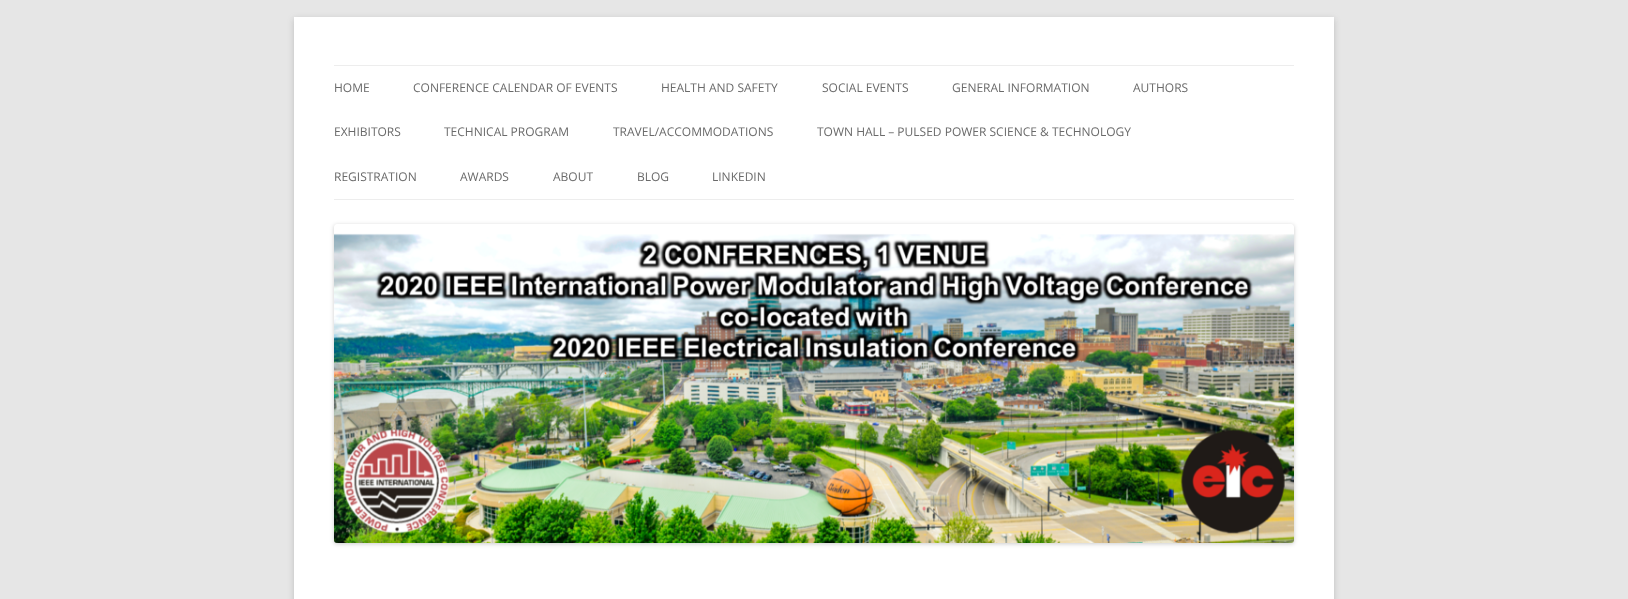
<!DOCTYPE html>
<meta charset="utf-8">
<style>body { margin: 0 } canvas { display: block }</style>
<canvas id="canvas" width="1628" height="599"></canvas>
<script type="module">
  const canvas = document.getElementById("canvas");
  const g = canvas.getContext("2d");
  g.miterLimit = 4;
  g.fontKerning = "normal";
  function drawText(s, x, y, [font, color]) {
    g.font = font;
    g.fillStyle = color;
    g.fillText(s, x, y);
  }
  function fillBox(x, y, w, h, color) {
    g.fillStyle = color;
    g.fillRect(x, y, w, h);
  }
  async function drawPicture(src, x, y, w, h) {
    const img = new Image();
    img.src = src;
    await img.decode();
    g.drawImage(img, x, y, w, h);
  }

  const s1 = ["12px Open Sans", "#6A6A6A"];

  fillBox(0, 0, 1628, 599, "#E6E6E6");
  g.fillStyle = "rgba(100, 100, 100, 0.3)";
  g.filter = "blur(3px)";
  g.beginPath();
  g.rect(294, 19, 1040, 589);
  g.fill();
  g.filter = "none";
  fillBox(294, 17, 1040, 582, "#FFFFFF");
  fillBox(334, 65, 960, 1, "#EDEDED");
  fillBox(334, 199, 960, 1, "#EDEDED");
  drawText("HOME", 334, 92, s1);
  drawText("CONFERENCE CALENDAR OF EVENTS", 413, 92, s1);
  drawText("HEALTH AND SAFETY", 661, 92, s1);
  drawText("SOCIAL EVENTS", 822, 92, s1);
  drawText("GENERAL INFORMATION", 952, 92, s1);
  drawText("AUTHORS", 1133, 92, s1);
  drawText("EXHIBITORS", 334, 136, s1);
  drawText("TECHNICAL PROGRAM", 444, 136, s1);
  drawText("TRAVEL/ACCOMMODATIONS", 613, 136, s1);
  drawText("TOWN HALL – PULSED POWER SCIENCE & TECHNOLOGY", 817, 136, s1);
  drawText("REGISTRATION", 334, 181, s1);
  drawText("AWARDS", 460, 181, s1);
  drawText("ABOUT", 553, 181, s1);
  drawText("BLOG", 637, 181, s1);
  drawText("LINKEDIN", 712, 181, s1);
  g.save();
  g.beginPath();
  g.moveTo(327, 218);
  g.lineTo(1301, 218);
  g.lineTo(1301, 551);
  g.lineTo(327, 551);
  g.closePath();
  g.moveTo(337, 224);
  g.lineTo(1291, 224);
  g.bezierCurveTo(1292.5, 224, 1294, 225.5, 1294, 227);
  g.lineTo(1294, 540);
  g.bezierCurveTo(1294, 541.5, 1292.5, 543, 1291, 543);
  g.lineTo(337, 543);
  g.bezierCurveTo(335.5, 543, 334, 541.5, 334, 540);
  g.lineTo(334, 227);
  g.bezierCurveTo(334, 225.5, 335.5, 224, 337, 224);
  g.closePath();
  g.clip("evenodd");
  g.fillStyle = "rgba(0, 0, 0, 0.2)";
  g.filter = "blur(2px)";
  g.beginPath();
  g.roundRect(334, 225, 960, 319, 3);
  g.fill();
  g.filter = "none";
  g.restore();
  await drawPicture("pic1.png", 334, 233, 960, 310);
</script>
